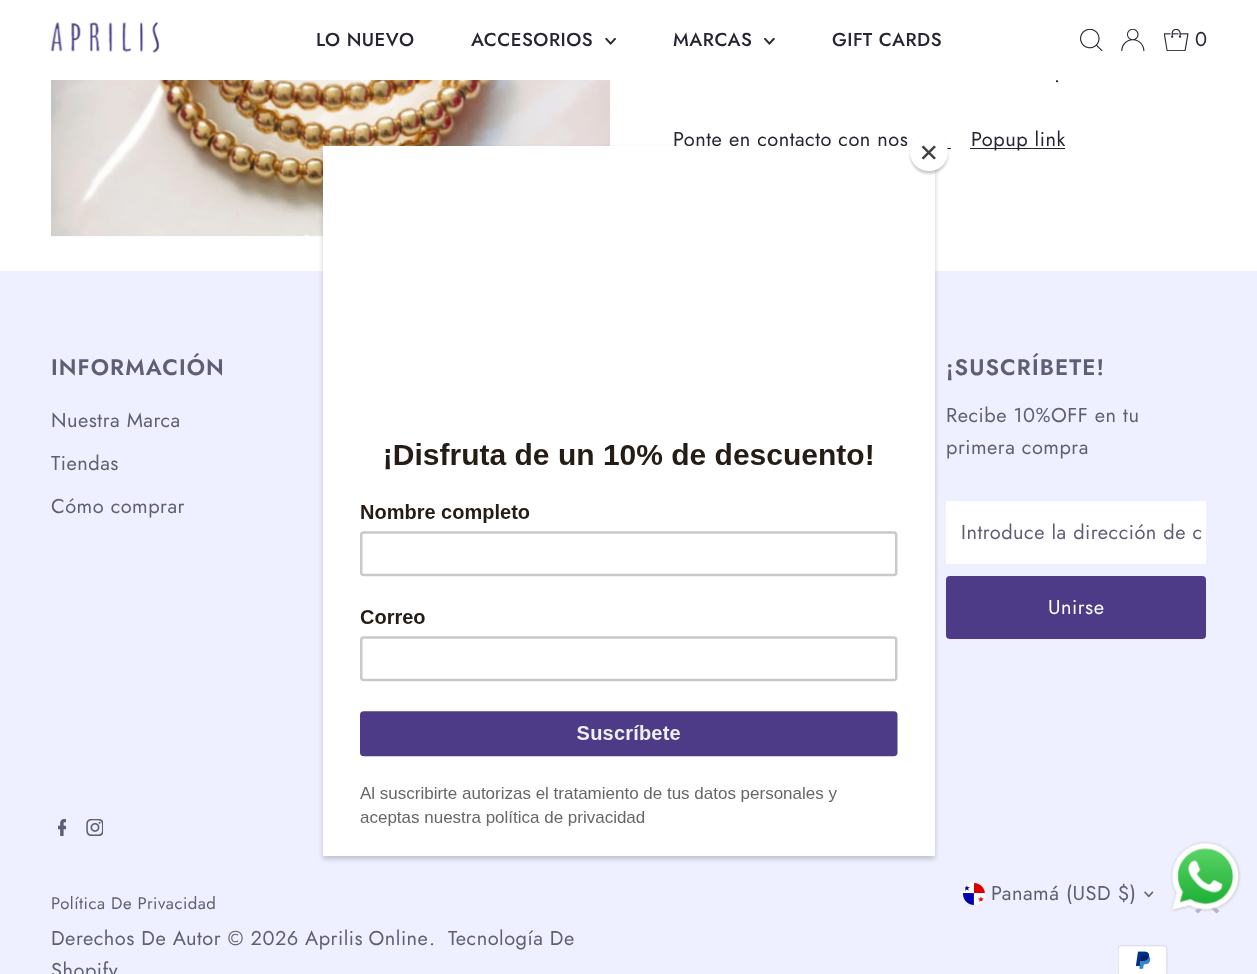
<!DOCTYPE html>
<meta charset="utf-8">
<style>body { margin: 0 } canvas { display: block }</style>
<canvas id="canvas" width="1257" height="974"></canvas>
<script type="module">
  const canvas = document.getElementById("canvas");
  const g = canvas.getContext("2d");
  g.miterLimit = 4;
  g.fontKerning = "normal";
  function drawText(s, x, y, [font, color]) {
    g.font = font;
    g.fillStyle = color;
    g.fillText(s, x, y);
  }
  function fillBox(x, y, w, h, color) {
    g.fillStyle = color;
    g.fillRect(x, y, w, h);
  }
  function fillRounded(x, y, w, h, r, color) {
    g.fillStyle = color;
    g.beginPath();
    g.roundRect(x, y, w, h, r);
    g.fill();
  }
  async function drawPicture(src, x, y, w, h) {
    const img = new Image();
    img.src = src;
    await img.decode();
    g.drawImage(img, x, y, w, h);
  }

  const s1 = ["500 18.75px Jost", "#272530"];
  const s2 = ["20px Jost", "#272530"];
  const s3 = ["600 22.5px Jost", "#605E75"];
  const s4 = ["20px Jost", "#605E75"];
  const s5 = ["20px Jost", "#FFFFFF"];
  const s6 = ["16.75px Jost", "#605E75"];

  fillBox(0, 0, 1257, 974, "#FFFFFF");
  await drawPicture("pic1.png", 50, 22, 110, 31);
  g.letterSpacing = "0.5px";
  drawText("LO NUEVO", 316, 46, s1);
  drawText("ACCESORIOS", 471, 46, s1);
  await drawPicture("pic2.png", 605, 38, 11, 7);
  drawText("MARCAS", 673, 46, s1);
  await drawPicture("pic3.png", 764, 38, 11, 7);
  drawText("GIFT CARDS", 832, 46, s1);
  await drawPicture("pic4.png", 1080, 29, 23, 22);
  await drawPicture("pic5.png", 1121, 29, 24, 22);
  await drawPicture("pic6.png", 1164, 29, 25, 22);
  drawText("0", 1195, 46, s2);
  await drawPicture("pic7.png", 51, 80, 559, 157);
  drawText(".", 1054, 82, s2);
  drawText("Ponte en contacto con nos", 673, 146, s2);
  fillBox(947, 148, 4, 1, "#272530");
  fillBox(970, 148, 95, 1, "#272530");
  drawText("Popup link", 971, 146, s2);
  fillBox(0, 271, 1257, 703, "#EFF0FF");
  g.letterSpacing = "1.1px";
  drawText("INFORMACIÓN", 51, 375, s3);
  g.letterSpacing = "0.5px";
  drawText("Nuestra Marca", 51, 427, s4);
  drawText("Tiendas", 51, 470, s4);
  drawText("Cómo comprar", 51, 513, s4);
  g.letterSpacing = "1.1px";
  drawText("¡SUSCRÍBETE!", 946, 375, s3);
  g.letterSpacing = "0.5px";
  drawText("Recibe 10%OFF en tu", 946, 422, s4);
  drawText("primera compra", 946, 454, s4);
  fillBox(946, 501, 260, 63, "#FFFFFF");
  drawText("Introduce la dirección de c", 961, 539, s4);
  fillRounded(946, 576, 260, 63, 4, "#4D3B88");
  drawText("Unirse", 1048, 614, s5);
  await drawPicture("pic8.png", 963, 883, 22, 22);
  drawText("Panamá (USD $)", 991, 900, s4);
  await drawPicture("pic9.png", 1144, 891, 10, 7);
  await drawPicture("pic10.png", 1118, 945, 50, 29);
  await drawPicture("pic11.png", 58, 819, 8, 17);
  await drawPicture("pic12.png", 86, 819, 17, 17);
  drawText("Política De Privacidad", 51, 909, s6);
  drawText("Derechos De Autor © 2026", 51, 945, s4);
  g.wordSpacing = "-1px";
  drawText("Aprilis Online", 305, 945, s4);
  g.wordSpacing = "0px";
  drawText(".", 429, 945, s4);
  drawText("Tecnología De", 448, 945, s4);
  drawText("Shopify", 51, 977, s4);
  g.fillStyle = "#B6B6C8";
  g.beginPath();
  g.moveTo(1207, 899);
  g.lineTo(1195, 911);
  g.lineTo(1198, 913.5);
  g.lineTo(1207, 904.5);
  g.lineTo(1216.5, 913.5);
  g.lineTo(1219.5, 911);
  g.closePath();
  g.fill();
  g.fillStyle = "rgba(0, 0, 0, 0.2)";
  g.filter = "blur(2.5px)";
  g.beginPath();
  g.rect(323, 149, 612, 710);
  g.fill();
  g.filter = "none";
  await drawPicture("pic13.png", 323, 146, 612, 710);
  g.filter = "blur(1px)";
  g.beginPath();
  g.roundRect(910, 136, 38, 38, 19);
  g.fill();
  g.filter = "none";
  fillRounded(910, 134, 38, 37, 18.5, "#FFFFFF");
  g.fillStyle = "#414141";
  g.beginPath();
  g.moveTo(934, 145.5);
  g.lineTo(936, 147);
  g.lineTo(923.5, 159.5);
  g.lineTo(921.5, 158);
  g.closePath();
  g.fill();
  g.beginPath();
  g.moveTo(921.5, 147);
  g.lineTo(923.5, 145.5);
  g.lineTo(936, 158);
  g.lineTo(934, 159.5);
  g.closePath();
  g.fill();
  await drawPicture("pic14.png", 1170, 841, 71, 71);
</script>
